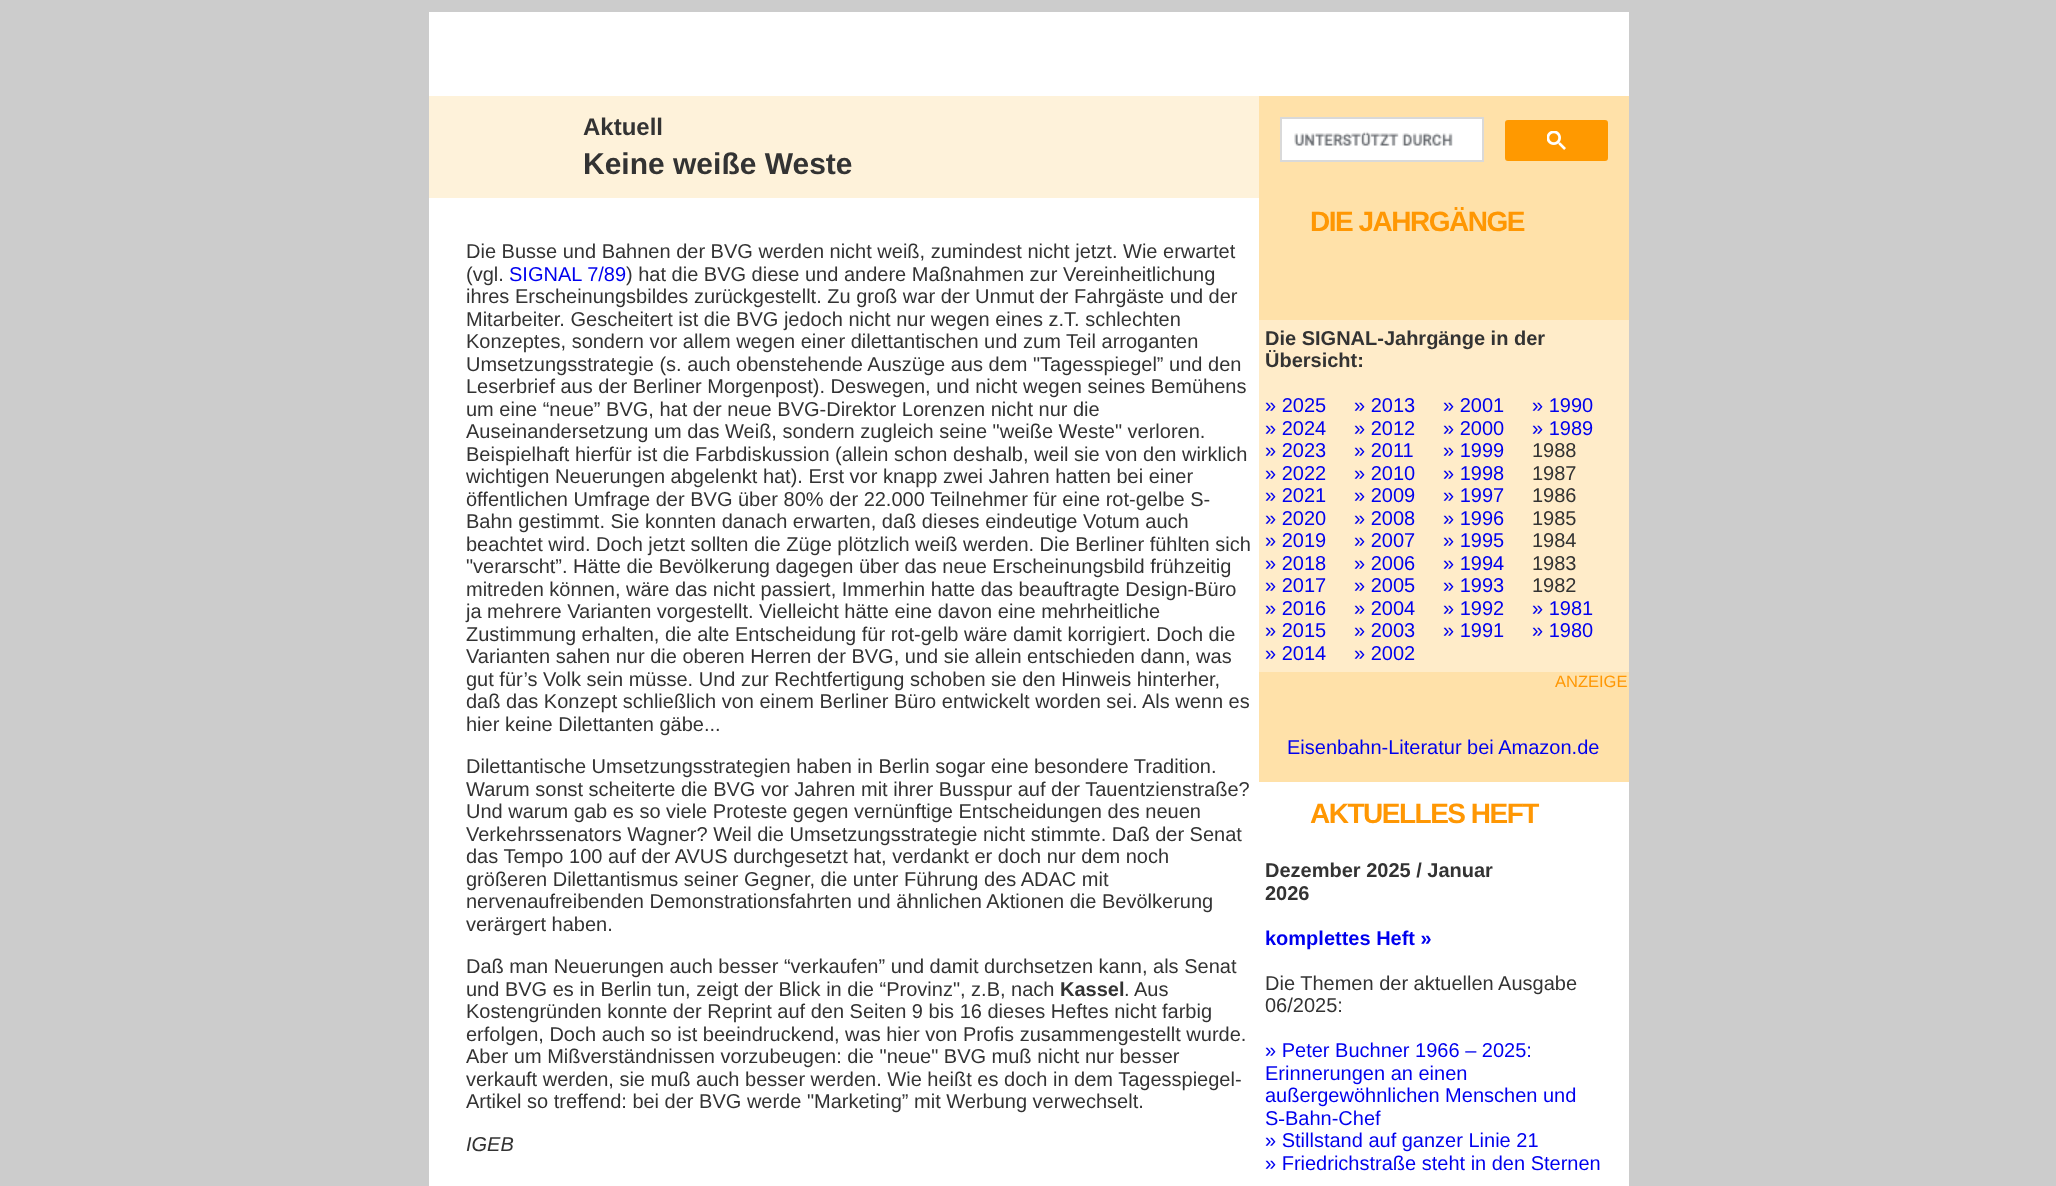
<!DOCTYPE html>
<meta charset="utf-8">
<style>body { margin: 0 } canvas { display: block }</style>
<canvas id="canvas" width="2056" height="1186"></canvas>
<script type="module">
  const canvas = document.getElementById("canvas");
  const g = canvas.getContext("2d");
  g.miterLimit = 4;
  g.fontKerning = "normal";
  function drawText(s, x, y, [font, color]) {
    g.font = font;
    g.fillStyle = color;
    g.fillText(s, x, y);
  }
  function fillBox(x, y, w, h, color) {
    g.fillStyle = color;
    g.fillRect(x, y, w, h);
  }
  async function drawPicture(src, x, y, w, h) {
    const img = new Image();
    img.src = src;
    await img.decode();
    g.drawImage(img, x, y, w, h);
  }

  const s1 = ["bold 24px Liberation Sans", "#333333"];
  const s2 = ["bold 30px Liberation Sans", "#333333"];
  const s3 = ["20px Liberation Sans", "#333333"];
  const s4 = ["20px Liberation Sans", "#0000EE"];
  const s5 = ["bold 20px Liberation Sans", "#333333"];
  const s6 = ["italic 20px Liberation Sans", "#333333"];
  const s7 = ["bold 28px Liberation Sans", "#FF9703"];
  const s8 = ["16.5px Liberation Sans", "#FF9703"];
  const s9 = ["bold 20px Liberation Sans", "#0000EE"];

  fillBox(0, 0, 2056, 1186, "#CCCCCC");
  fillBox(429, 12, 1200, 1174, "#FFFFFF");
  fillBox(429, 96, 830, 102, "#FEF2DA");
  drawText("Aktuell", 583, 135, s1);
  drawText("Keine weiße Weste", 583, 174, s2);
  drawText("Die Busse und Bahnen der BVG werden nicht weiß, zumindest nicht jetzt. Wie erwartet", 466, 258, s3);
  drawText("(vgl.", 466, 281, s3);
  drawText("SIGNAL 7/89", 509, 281, s4);
  drawText(") hat die BVG diese und andere Maßnahmen zur Vereinheitlichung", 626, 281, s3);
  drawText("ihres Erscheinungsbildes zurückgestellt. Zu groß war der Unmut der Fahrgäste und der", 466, 303, s3);
  drawText("Mitarbeiter. Gescheitert ist die BVG jedoch nicht nur wegen eines z.T. schlechten", 466, 326, s3);
  drawText("Konzeptes, sondern vor allem wegen einer dilettantischen und zum Teil arroganten", 466, 348, s3);
  drawText("Umsetzungsstrategie (s. auch obenstehende Auszüge aus dem \"Tagesspiegel” und den", 466, 371, s3);
  drawText("Leserbrief aus der Berliner Morgenpost). Deswegen, und nicht wegen seines Bemühens", 466, 393, s3);
  drawText("um eine “neue” BVG, hat der neue BVG-Direktor Lorenzen nicht nur die", 466, 416, s3);
  drawText("Auseinandersetzung um das Weiß, sondern zugleich seine \"weiße Weste\" verloren.", 466, 438, s3);
  drawText("Beispielhaft hierfür ist die Farbdiskussion (allein schon deshalb, weil sie von den wirklich", 466, 461, s3);
  drawText("wichtigen Neuerungen abgelenkt hat). Erst vor knapp zwei Jahren hatten bei einer", 466, 483, s3);
  drawText("öffentlichen Umfrage der BVG über 80% der 22.000 Teilnehmer für eine rot-gelbe S-", 466, 506, s3);
  drawText("Bahn gestimmt. Sie konnten danach erwarten, daß dieses eindeutige Votum auch", 466, 528, s3);
  drawText("beachtet wird. Doch jetzt sollten die Züge plötzlich weiß werden. Die Berliner fühlten sich", 466, 551, s3);
  drawText("\"verarscht”. Hätte die Bevölkerung dagegen über das neue Erscheinungsbild frühzeitig", 466, 573, s3);
  drawText("mitreden können, wäre das nicht passiert, Immerhin hatte das beauftragte Design-Büro", 466, 596, s3);
  drawText("ja mehrere Varianten vorgestellt. Vielleicht hätte eine davon eine mehrheitliche", 466, 618, s3);
  drawText("Zustimmung erhalten, die alte Entscheidung für rot-gelb wäre damit korrigiert. Doch die", 466, 641, s3);
  drawText("Varianten sahen nur die oberen Herren der BVG, und sie allein entschieden dann, was", 466, 663, s3);
  drawText("gut für’s Volk sein müsse. Und zur Rechtfertigung schoben sie den Hinweis hinterher,", 466, 686, s3);
  drawText("daß das Konzept schließlich von einem Berliner Büro entwickelt worden sei. Als wenn es", 466, 708, s3);
  drawText("hier keine Dilettanten gäbe...", 466, 731, s3);
  drawText("Dilettantische Umsetzungsstrategien haben in Berlin sogar eine besondere Tradition.", 466, 773, s3);
  drawText("Warum sonst scheiterte die BVG vor Jahren mit ihrer Busspur auf der Tauentzienstraße?", 466, 796, s3);
  drawText("Und warum gab es so viele Proteste gegen vernünftige Entscheidungen des neuen", 466, 818, s3);
  drawText("Verkehrssenators Wagner? Weil die Umsetzungsstrategie nicht stimmte. Daß der Senat", 466, 841, s3);
  drawText("das Tempo 100 auf der AVUS durchgesetzt hat, verdankt er doch nur dem noch", 466, 863, s3);
  drawText("größeren Dilettantismus seiner Gegner, die unter Führung des ADAC mit", 466, 886, s3);
  drawText("nervenaufreibenden Demonstrationsfahrten und ähnlichen Aktionen die Bevölkerung", 466, 908, s3);
  drawText("verärgert haben.", 466, 931, s3);
  drawText("Daß man Neuerungen auch besser “verkaufen” und damit durchsetzen kann, als Senat", 466, 973, s3);
  drawText("und BVG es in Berlin tun, zeigt der Blick in die “Provinz\", z.B, nach", 466, 996, s3);
  drawText("Kassel", 1060, 996, s5);
  drawText(". Aus", 1124, 996, s3);
  drawText("Kostengründen konnte der Reprint auf den Seiten 9 bis 16 dieses Heftes nicht farbig", 466, 1018, s3);
  drawText("erfolgen, Doch auch so ist beeindruckend, was hier von Profis zusammengestellt wurde.", 466, 1041, s3);
  drawText("Aber um Mißverständnissen vorzubeugen: die \"neue\" BVG muß nicht nur besser", 466, 1063, s3);
  drawText("verkauft werden, sie muß auch besser werden. Wie heißt es doch in dem Tagesspiegel-", 466, 1086, s3);
  drawText("Artikel so treffend: bei der BVG werde \"Marketing” mit Werbung verwechselt.", 466, 1108, s3);
  drawText("IGEB", 466, 1151, s6);
  fillBox(1259, 96, 370, 686, "#FFE1A9");
  g.fillStyle = "#FFFFFF";
  g.beginPath();
  g.rect(1281, 118, 202, 43);
  g.fill();
  g.strokeStyle = "#D9D9D9";
  g.lineWidth = 2;
  g.stroke();
  await drawPicture("pic1.png", 1294, 131, 159, 15);
  g.fillStyle = "#FF9900";
  g.beginPath();
  g.roundRect(1506, 121, 101, 39, 2);
  g.fill();
  g.strokeStyle = "#FF9900";
  g.stroke();
  await drawPicture("pic2.png", 1547, 131, 19, 19);
  g.letterSpacing = "-1.5px";
  drawText("DIE JAHRGÄNGE", 1310, 231, s7);
  fillBox(1259, 320, 370, 352, "#FFECC9");
  g.letterSpacing = "0px";
  drawText("Die SIGNAL-Jahrgänge in der", 1265, 345, s5);
  drawText("Übersicht:", 1265, 367, s5);
  drawText("» 2025", 1265, 412, s4);
  drawText("» 2024", 1265, 435, s4);
  drawText("» 2023", 1265, 457, s4);
  drawText("» 2022", 1265, 480, s4);
  drawText("» 2021", 1265, 502, s4);
  drawText("» 2020", 1265, 525, s4);
  drawText("» 2019", 1265, 547, s4);
  drawText("» 2018", 1265, 570, s4);
  drawText("» 2017", 1265, 592, s4);
  drawText("» 2016", 1265, 615, s4);
  drawText("» 2015", 1265, 637, s4);
  drawText("» 2014", 1265, 660, s4);
  drawText("» 2013", 1354, 412, s4);
  drawText("» 2012", 1354, 435, s4);
  drawText("» 2011", 1354, 457, s4);
  drawText("» 2010", 1354, 480, s4);
  drawText("» 2009", 1354, 502, s4);
  drawText("» 2008", 1354, 525, s4);
  drawText("» 2007", 1354, 547, s4);
  drawText("» 2006", 1354, 570, s4);
  drawText("» 2005", 1354, 592, s4);
  drawText("» 2004", 1354, 615, s4);
  drawText("» 2003", 1354, 637, s4);
  drawText("» 2002", 1354, 660, s4);
  drawText("» 2001", 1443, 412, s4);
  drawText("» 2000", 1443, 435, s4);
  drawText("» 1999", 1443, 457, s4);
  drawText("» 1998", 1443, 480, s4);
  drawText("» 1997", 1443, 502, s4);
  drawText("» 1996", 1443, 525, s4);
  drawText("» 1995", 1443, 547, s4);
  drawText("» 1994", 1443, 570, s4);
  drawText("» 1993", 1443, 592, s4);
  drawText("» 1992", 1443, 615, s4);
  drawText("» 1991", 1443, 637, s4);
  drawText("» 1990", 1532, 412, s4);
  drawText("» 1989", 1532, 435, s4);
  drawText("1988", 1532, 457, s3);
  drawText("1987", 1532, 480, s3);
  drawText("1986", 1532, 502, s3);
  drawText("1985", 1532, 525, s3);
  drawText("1984", 1532, 547, s3);
  drawText("1983", 1532, 570, s3);
  drawText("1982", 1532, 592, s3);
  drawText("» 1981", 1532, 615, s4);
  drawText("» 1980", 1532, 637, s4);
  drawText("ANZEIGE", 1555, 687, s8);
  drawText("Eisenbahn-Literatur bei Amazon.de", 1287, 754, s4);
  g.letterSpacing = "-1.5px";
  drawText("AKTUELLES HEFT", 1310, 823, s7);
  g.letterSpacing = "0px";
  drawText("Dezember 2025 / Januar", 1265, 877, s5);
  drawText("2026", 1265, 900, s5);
  drawText("komplettes Heft »", 1265, 945, s9);
  drawText("Die Themen der aktuellen Ausgabe", 1265, 990, s3);
  drawText("06/2025:", 1265, 1012, s3);
  drawText("» Peter Buchner 1966 – 2025:", 1265, 1057, s4);
  drawText("Erinnerungen an einen", 1265, 1080, s4);
  drawText("außergewöhnlichen Menschen und", 1265, 1102, s4);
  drawText("S‑Bahn-Chef", 1265, 1125, s4);
  drawText("» Stillstand auf ganzer Linie 21", 1265, 1147, s4);
  drawText("» Friedrichstraße steht in den Sternen", 1265, 1170, s4);
</script>
